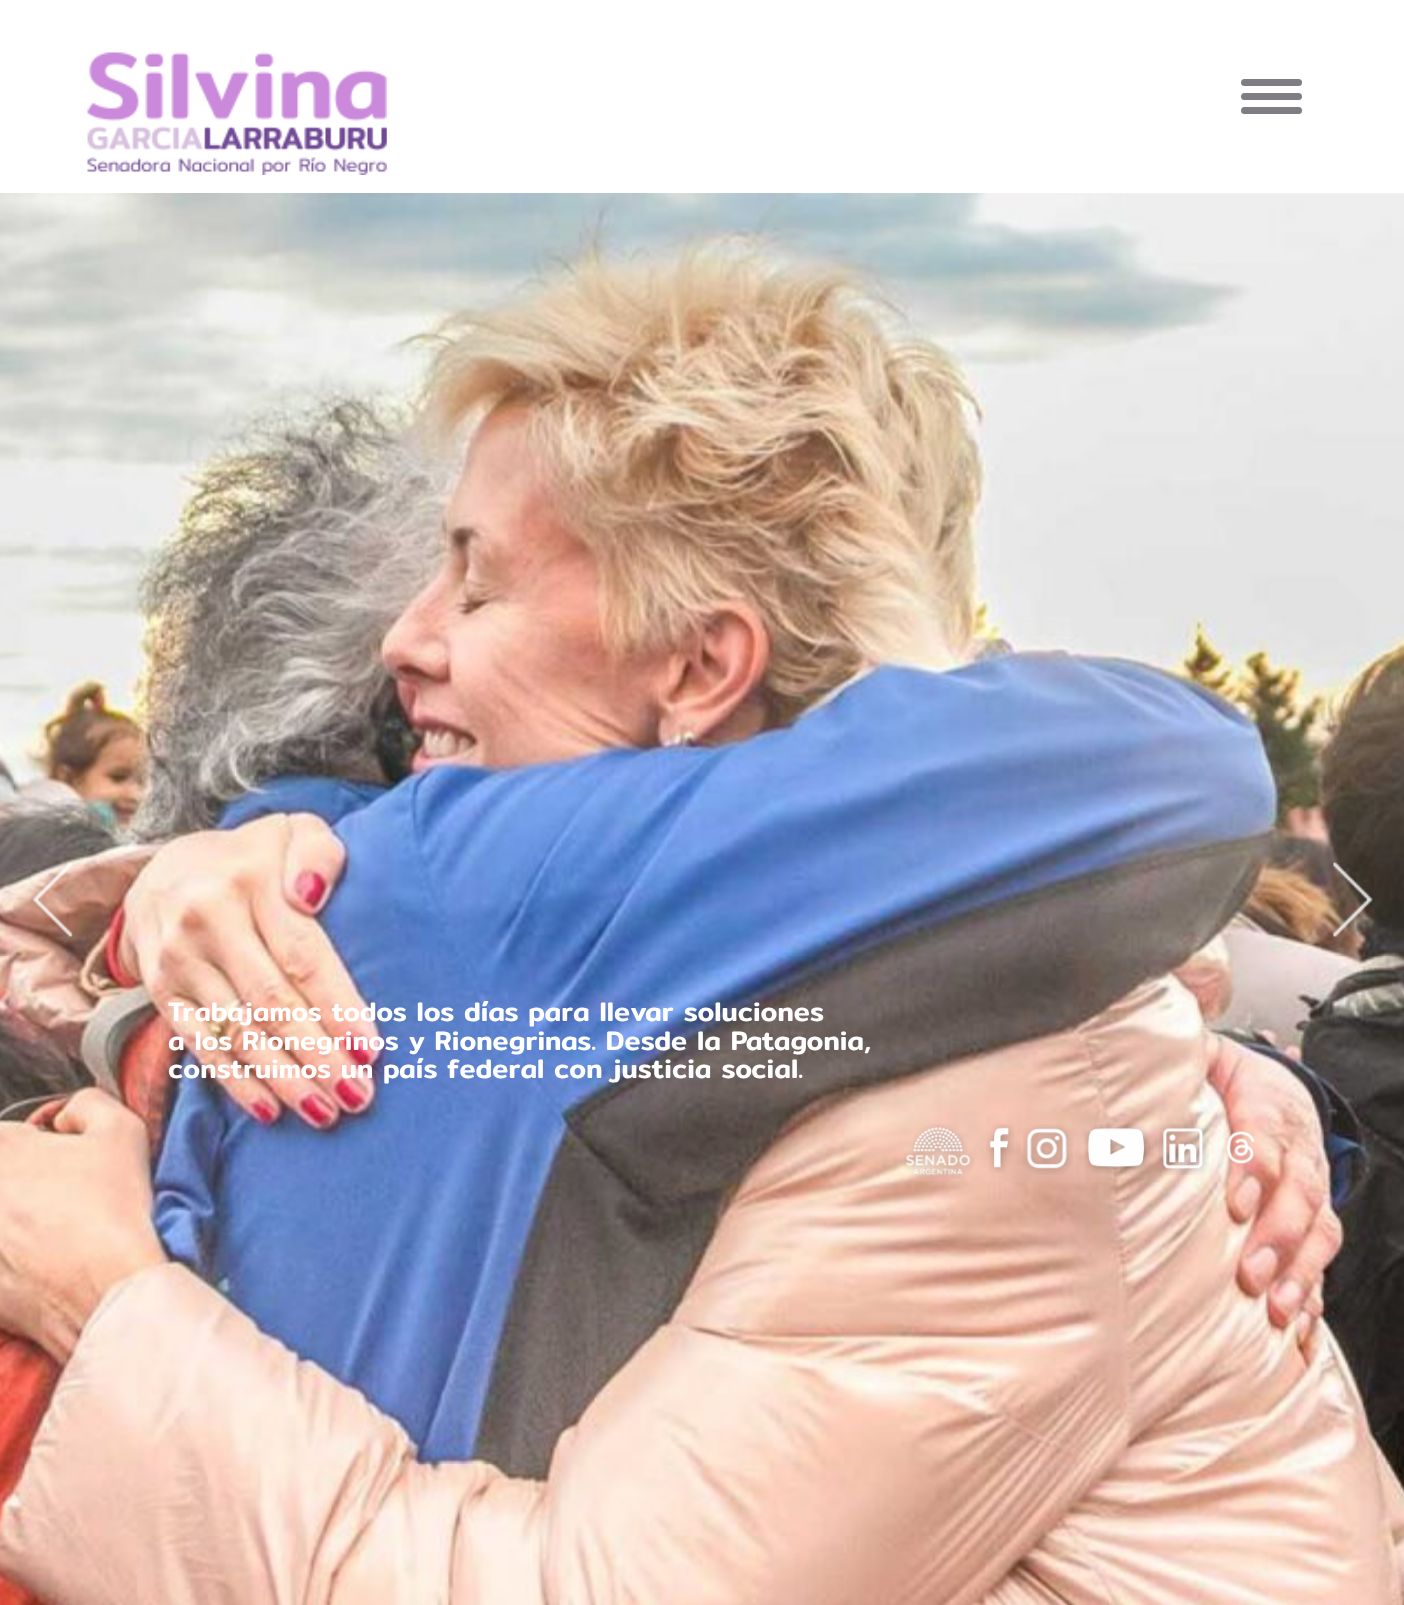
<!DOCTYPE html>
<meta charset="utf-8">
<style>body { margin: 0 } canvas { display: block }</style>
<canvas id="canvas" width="1404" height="1605"></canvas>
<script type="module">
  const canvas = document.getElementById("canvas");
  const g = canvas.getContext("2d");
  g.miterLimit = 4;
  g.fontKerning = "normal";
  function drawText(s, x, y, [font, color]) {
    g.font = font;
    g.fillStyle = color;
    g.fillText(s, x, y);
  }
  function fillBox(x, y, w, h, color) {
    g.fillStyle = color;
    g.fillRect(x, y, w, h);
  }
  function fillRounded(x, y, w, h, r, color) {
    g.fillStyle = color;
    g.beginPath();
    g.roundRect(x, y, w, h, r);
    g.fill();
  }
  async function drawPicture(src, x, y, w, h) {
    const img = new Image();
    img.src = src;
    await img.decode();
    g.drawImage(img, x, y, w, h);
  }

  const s1 = ["500 27.1px Mitr", "#FFFFFF"];

  fillBox(0, 0, 1404, 1605, "#FFFFFF");
  await drawPicture("pic1.png", 87, 52, 300, 123);
  fillRounded(1241, 79, 61, 7, 3.5, "#7F7D83");
  fillRounded(1241, 93, 61, 7, 3.5, "#7F7D83");
  fillRounded(1241, 107, 61, 7, 3.5, "#7F7D83");
  await drawPicture("pic4.png", 0, 193, 1404, 1412);
  await drawPicture("pic2.png", 30, 862, 43, 75);
  await drawPicture("pic3.png", 1333, 862, 40, 75);
  drawText("Trabajamos todos los días para llevar soluciones", 168, 1021, s1);
  drawText("a los Rionegrinos y Rionegrinas. Desde la Patagonia,", 168, 1050, s1);
  drawText("construimos un país federal con justicia social.", 168, 1078, s1);
  await drawPicture("pic5.png", 904, 1124, 71, 55);
  await drawPicture("pic6.png", 986, 1124, 28, 49);
  await drawPicture("pic7.png", 1023, 1124, 50, 51);
  await drawPicture("pic8.png", 1084, 1124, 67, 50);
  await drawPicture("pic9.png", 1159, 1124, 50, 51);
  await drawPicture("pic10.png", 1226, 1131, 29, 33);
</script>
